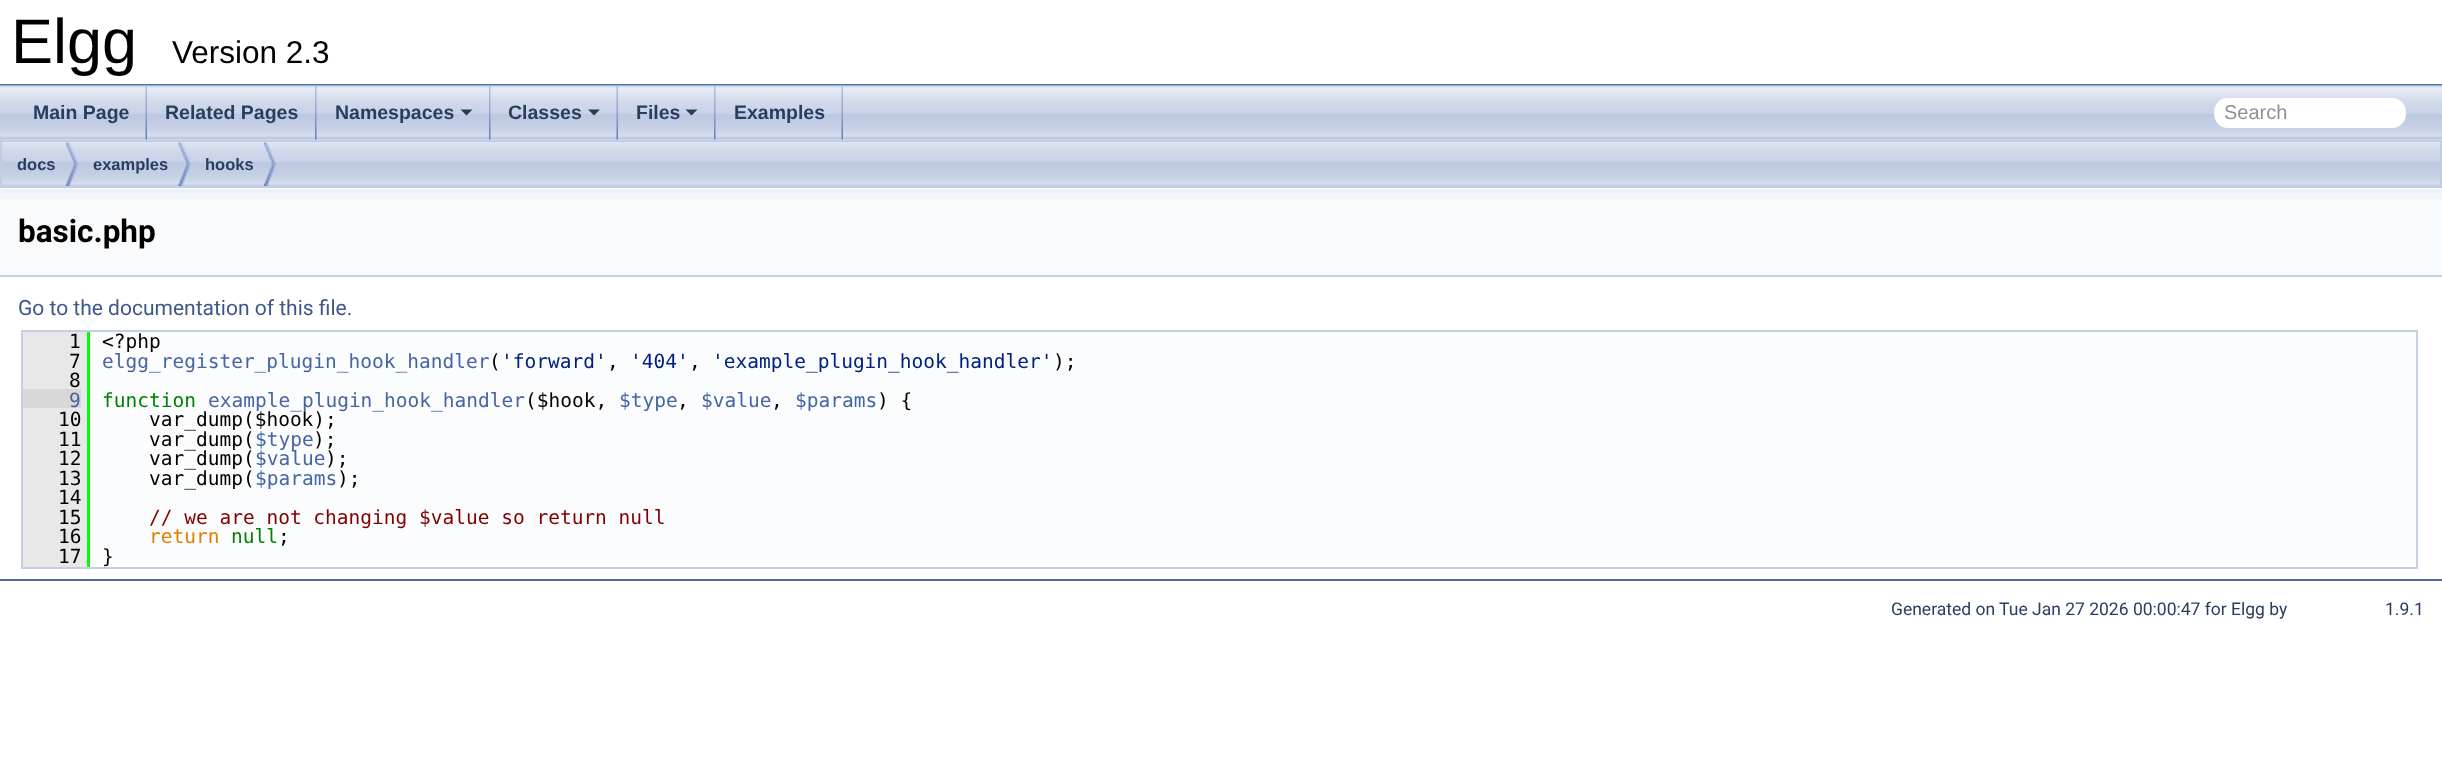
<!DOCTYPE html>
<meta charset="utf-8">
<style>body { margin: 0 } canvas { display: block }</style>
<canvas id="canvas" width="2442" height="771"></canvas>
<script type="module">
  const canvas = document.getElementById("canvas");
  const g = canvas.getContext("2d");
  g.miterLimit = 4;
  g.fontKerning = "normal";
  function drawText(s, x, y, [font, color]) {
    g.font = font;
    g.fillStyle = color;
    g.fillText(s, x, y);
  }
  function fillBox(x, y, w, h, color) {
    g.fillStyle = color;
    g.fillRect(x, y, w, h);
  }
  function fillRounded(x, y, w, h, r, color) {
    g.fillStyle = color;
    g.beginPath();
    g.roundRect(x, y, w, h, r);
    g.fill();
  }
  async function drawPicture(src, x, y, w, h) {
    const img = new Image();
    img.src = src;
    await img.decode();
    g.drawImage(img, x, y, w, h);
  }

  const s1 = ["63px Liberation Sans", "#000000"];
  const s2 = ["31.5px Liberation Sans", "#000000"];
  const s3 = ["bold 19.5px Liberation Sans", "#2A3D61"];
  const s4 = ["20px Liberation Sans", "#909090"];
  const s5 = ["bold 16.5px Liberation Sans", "#2A3D61"];
  const s6 = ["bold 31.5px Roboto", "#000000"];
  const s7 = ["21px Roboto", "#3D578C"];
  const s8 = ["19.5px DejaVu Sans Mono", "#000000"];
  const s9 = ["19.5px DejaVu Sans Mono", "#4665A2"];
  const s10 = ["19.5px DejaVu Sans Mono", "#002080"];
  const s11 = ["19.5px DejaVu Sans Mono", "#008000"];
  const s12 = ["19.5px DejaVu Sans Mono", "#800000"];
  const s13 = ["19.5px DejaVu Sans Mono", "#E08000"];
  const s14 = ["17.5px Roboto", "#2A3D61"];

  fillBox(0, 0, 2442, 771, "#FFFFFF");
  fillBox(0, 84, 2442, 2, "#5373B4");
  drawText("Elgg", 11, 63, s1);
  drawText("Version 2.3", 172, 63, s2);
  await drawPicture("pic4.png", 0, 139, 2442, 47);
  await drawPicture("pic1.png", 0, 85, 2442, 55);
  await drawPicture("pic2.png", 145, 85, 2, 55);
  drawText("Main Page", 33, 119, s3);
  await drawPicture("pic3.png", 315, 85, 2, 55);
  drawText("Related Pages", 165, 119, s3);
  await drawPicture("pic3.png", 489, 85, 2, 55);
  drawText("Namespaces", 335, 119, s3);
  g.fillStyle = "#283A5D";
  g.beginPath();
  g.moveTo(460.5, 109.5);
  g.lineTo(472.5, 109.5);
  g.lineTo(466.5, 115.5);
  g.closePath();
  g.fill();
  await drawPicture("pic2.png", 616, 85, 2, 55);
  drawText("Classes", 508, 119, s3);
  g.fillStyle = "#283A5D";
  g.beginPath();
  g.moveTo(588, 109.5);
  g.lineTo(600, 109.5);
  g.lineTo(594, 115.5);
  g.closePath();
  g.fill();
  await drawPicture("pic3.png", 714, 85, 2, 55);
  drawText("Files", 636, 119, s3);
  g.fillStyle = "#283A5D";
  g.beginPath();
  g.moveTo(685.5, 109.5);
  g.lineTo(697.5, 109.5);
  g.lineTo(691.5, 115.5);
  g.closePath();
  g.fill();
  await drawPicture("pic2.png", 841, 85, 2, 55);
  drawText("Examples", 734, 119, s3);
  fillRounded(2214, 98, 192, 30, 14, "#FFFFFF");
  drawText("Search", 2224, 119, s4);
  g.strokeStyle = "#C2CDE4";
  g.lineWidth = 2;
  g.strokeRect(1, 141, 2440, 46);
  await drawPicture("pic5.png", 66, 142, 12, 44);
  drawText("docs", 17, 170, s5);
  await drawPicture("pic6.png", 178, 142, 13, 44);
  drawText("examples", 93, 170, s5);
  await drawPicture("pic7.png", 264, 142, 12, 44);
  drawText("hooks", 205, 170, s5);
  fillBox(0, 188, 2442, 87, "#F9FAFC");
  await drawPicture("pic8.png", 0, 189, 2442, 10);
  fillBox(0, 275, 2442, 2, "#C4CFE5");
  drawText("basic.php", 18, 242, s6);
  drawText("Go to the documentation of this file.", 18, 315, s7);
  fillBox(90, 332, 2326, 235, "#FBFCFD");
  g.strokeStyle = "#C4CFE5";
  g.strokeRect(22, 331, 2395, 237);
  fillBox(23, 332, 64, 57, "#E8E8E8");
  drawText("1", 69, 348, s8);
  fillBox(87, 332, 3, 235, "#00FF00");
  drawText("<?php", 102, 348, s8);
  drawText("7", 69, 368, s8);
  drawText("elgg_register_plugin_hook_handler", 102, 368, s9);
  drawText("(", 489, 368, s8);
  drawText("'forward'", 501, 368, s10);
  drawText(",", 607, 368, s8);
  drawText("'404'", 630, 368, s10);
  drawText(",", 689, 368, s8);
  drawText("'example_plugin_hook_handler'", 712, 368, s10);
  drawText(");", 1053, 368, s8);
  drawText("8", 69, 387, s8);
  fillBox(23, 389, 58, 19, "#D8D8D8");
  drawText("9", 69, 407, s9);
  fillBox(81, 389, 6, 19, "#E8E8E8");
  drawText("function", 102, 407, s11);
  drawText("example_plugin_hook_handler", 208, 407, s9);
  drawText("($hook,", 525, 407, s8);
  drawText("$type", 619, 407, s9);
  drawText(",", 677, 407, s8);
  drawText("$value", 701, 407, s9);
  drawText(",", 771, 407, s8);
  drawText("$params", 795, 407, s9);
  drawText(") {", 877, 407, s8);
  fillBox(23, 408, 64, 159, "#E8E8E8");
  drawText("10", 58, 426, s8);
  drawText("var_dump($hook);", 149, 426, s8);
  drawText("11", 58, 446, s8);
  drawText("var_dump(", 149, 446, s8);
  drawText("$type", 255, 446, s9);
  drawText(");", 313, 446, s8);
  drawText("12", 58, 465, s8);
  drawText("var_dump(", 149, 465, s8);
  drawText("$value", 255, 465, s9);
  drawText(");", 325, 465, s8);
  drawText("13", 58, 485, s8);
  drawText("var_dump(", 149, 485, s8);
  drawText("$params", 255, 485, s9);
  drawText(");", 337, 485, s8);
  drawText("14", 58, 504, s8);
  drawText("15", 58, 524, s8);
  drawText("// we are not changing $value so return null", 149, 524, s12);
  drawText("16", 58, 543, s8);
  drawText("return", 149, 543, s13);
  drawText("null", 231, 543, s11);
  drawText(";", 278, 543, s8);
  drawText("17", 58, 563, s8);
  drawText("}", 102, 563, s8);
  fillBox(0, 579, 2442, 2, "#4A6AAA");
  drawText("Generated on Tue Jan 27 2026 00:00:47 for Elgg by", 1891, 615, s14);
  drawText("1.9.1", 2385, 615, s14);
</script>
